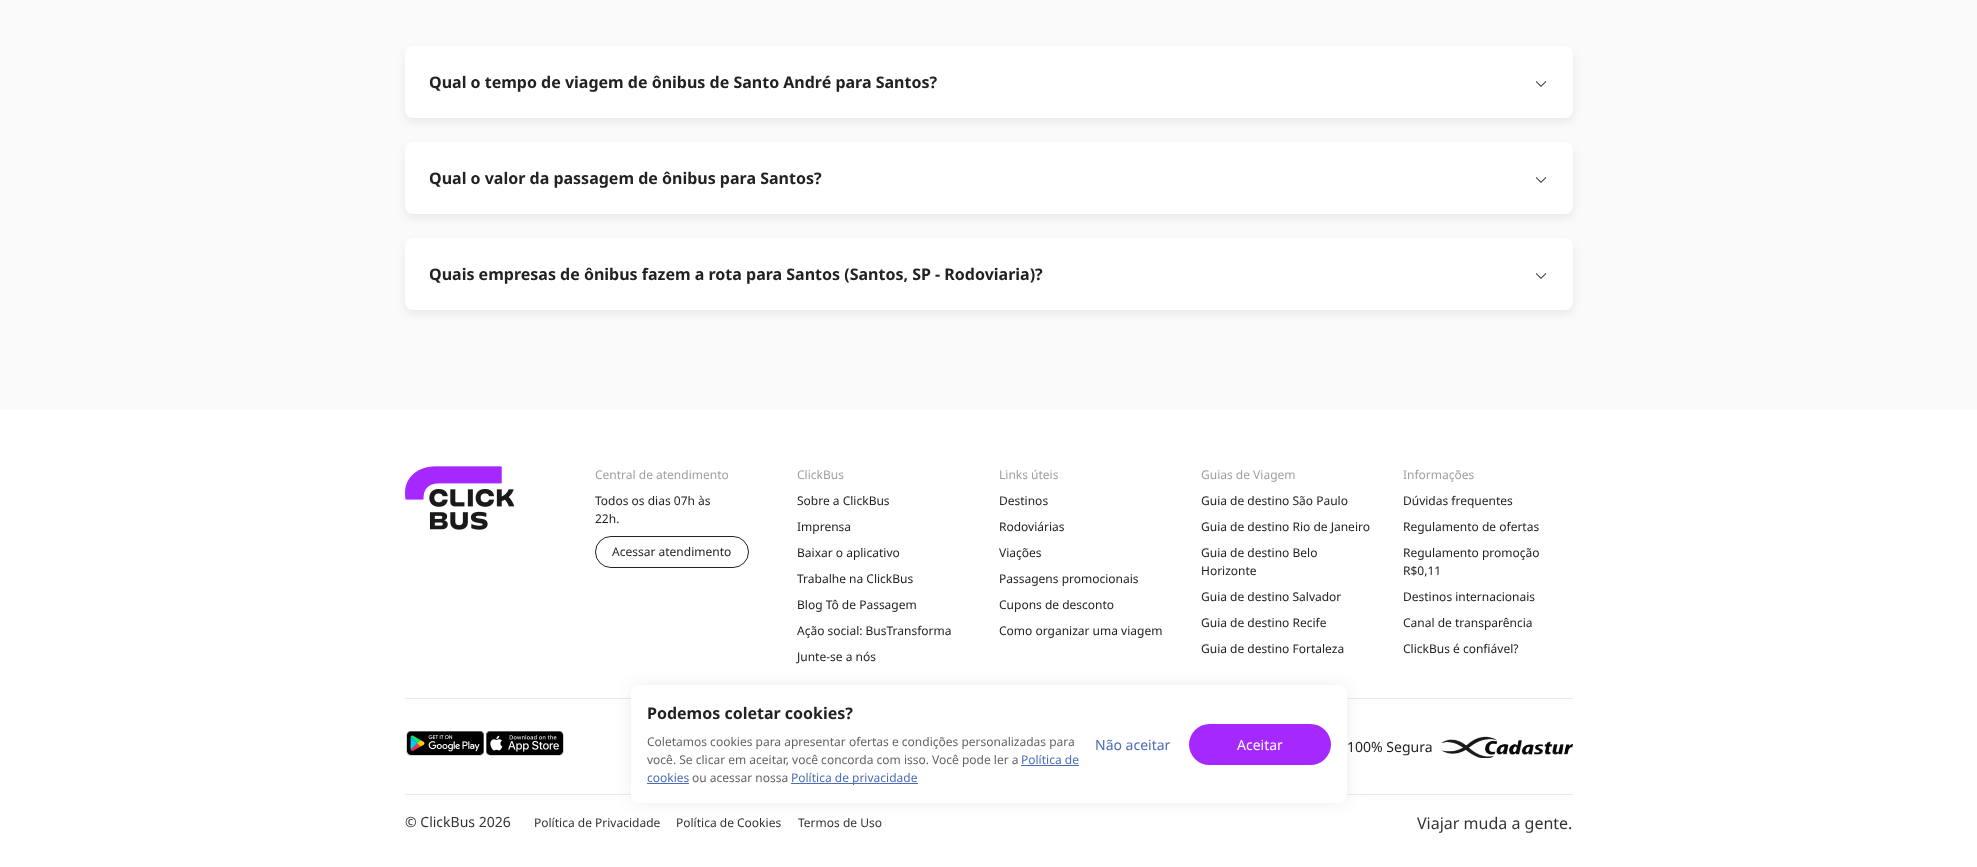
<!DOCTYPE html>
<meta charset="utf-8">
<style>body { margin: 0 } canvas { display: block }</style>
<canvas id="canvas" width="1977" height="867"></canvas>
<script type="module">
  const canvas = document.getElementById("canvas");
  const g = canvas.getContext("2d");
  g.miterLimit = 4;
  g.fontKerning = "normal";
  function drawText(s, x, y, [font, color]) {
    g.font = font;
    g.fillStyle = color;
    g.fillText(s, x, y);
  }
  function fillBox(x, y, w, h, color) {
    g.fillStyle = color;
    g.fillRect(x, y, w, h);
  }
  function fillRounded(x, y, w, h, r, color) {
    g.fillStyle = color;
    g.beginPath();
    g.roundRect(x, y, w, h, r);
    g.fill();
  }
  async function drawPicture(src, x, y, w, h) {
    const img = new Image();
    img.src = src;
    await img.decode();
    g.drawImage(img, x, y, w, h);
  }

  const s1 = ["bold 16px Noto Sans", "#222222"];
  const s2 = ["12px Noto Sans", "#9F9F9F"];
  const s3 = ["12px Noto Sans", "#222222"];
  const s4 = ["14px Noto Sans", "#222222"];
  const s5 = ["14px Noto Sans", "#333333"];
  const s6 = ["12px Noto Sans", "#333333"];
  const s7 = ["16px Noto Sans", "#333333"];
  const s8 = ["12px Noto Sans", "#636363"];
  const s9 = ["12px Noto Sans", "#4B6DB6"];
  const s10 = ["14px Noto Sans", "#4B6DB6"];
  const s11 = ["14px Noto Sans", "#FFFFFF"];

  fillBox(0, 0, 1977, 867, "#FFFFFF");
  fillBox(0, 0, 1977, 410, "#FAFAFA");
  g.fillStyle = "rgba(42, 43, 45, 0.08)";
  g.filter = "blur(4px)";
  g.beginPath();
  g.roundRect(405, 50, 1168, 72, 8);
  g.fill();
  g.filter = "none";
  fillRounded(405, 46, 1168, 72, 8, "#FFFFFF");
  drawText("Qual o tempo de viagem de ônibus de Santo André para Santos?", 429, 88, s1);
  await drawPicture("pic1.png", 1535, 81, 12, 6);
  g.fillStyle = "rgba(42, 43, 45, 0.08)";
  g.filter = "blur(4px)";
  g.beginPath();
  g.roundRect(405, 146, 1168, 72, 8);
  g.fill();
  g.filter = "none";
  fillRounded(405, 142, 1168, 72, 8, "#FFFFFF");
  drawText("Qual o valor da passagem de ônibus para Santos?", 429, 184, s1);
  await drawPicture("pic1.png", 1535, 177, 12, 6);
  g.fillStyle = "rgba(42, 43, 45, 0.08)";
  g.filter = "blur(4px)";
  g.beginPath();
  g.roundRect(405, 242, 1168, 72, 8);
  g.fill();
  g.filter = "none";
  fillRounded(405, 238, 1168, 72, 8, "#FFFFFF");
  drawText("Quais empresas de ônibus fazem a rota para Santos (Santos, SP - Rodoviaria)?", 429, 280, s1);
  await drawPicture("pic1.png", 1535, 273, 12, 6);
  await drawPicture("pic2.png", 405, 466, 109, 64);
  drawText("Central de atendimento", 595, 479, s2);
  drawText("Todos os dias 07h às", 595, 505, s3);
  drawText("22h.", 595, 523, s3);
  g.beginPath();
  g.roundRect(595.5, 536.5, 153, 31, 15.5);
  g.strokeStyle = "#222222";
  g.stroke();
  drawText("Acessar atendimento", 612, 556, s3);
  drawText("ClickBus", 797, 479, s2);
  drawText("Sobre a ClickBus", 797, 505, s3);
  drawText("Imprensa", 797, 531, s3);
  drawText("Baixar o aplicativo", 797, 557, s3);
  drawText("Trabalhe na ClickBus", 797, 583, s3);
  drawText("Blog Tô de Passagem", 797, 609, s3);
  drawText("Ação social: BusTransforma", 797, 635, s3);
  drawText("Junte-se a nós", 797, 661, s3);
  drawText("Links úteis", 999, 479, s2);
  drawText("Destinos", 999, 505, s3);
  drawText("Rodoviárias", 999, 531, s3);
  drawText("Viações", 999, 557, s3);
  drawText("Passagens promocionais", 999, 583, s3);
  drawText("Cupons de desconto", 999, 609, s3);
  drawText("Como organizar uma viagem", 999, 635, s3);
  drawText("Guias de Viagem", 1201, 479, s2);
  drawText("Guia de destino São Paulo", 1201, 505, s3);
  drawText("Guia de destino Rio de Janeiro", 1201, 531, s3);
  drawText("Guia de destino Belo", 1201, 557, s3);
  drawText("Horizonte", 1201, 575, s3);
  drawText("Guia de destino Salvador", 1201, 601, s3);
  drawText("Guia de destino Recife", 1201, 627, s3);
  drawText("Guia de destino Fortaleza", 1201, 653, s3);
  drawText("Informações", 1403, 479, s2);
  drawText("Dúvidas frequentes", 1403, 505, s3);
  drawText("Regulamento de ofertas", 1403, 531, s3);
  drawText("Regulamento promoção", 1403, 557, s3);
  drawText("R$0,11", 1403, 575, s3);
  drawText("Destinos internacionais", 1403, 601, s3);
  drawText("Canal de transparência", 1403, 627, s3);
  drawText("ClickBus é confiável?", 1403, 653, s3);
  fillBox(405, 698, 1168, 1, "#E9E9E9");
  await drawPicture("pic3.png", 406, 731, 78, 25);
  await drawPicture("pic4.png", 486, 731, 78, 25);
  drawText("100% Segura", 1347, 752, s4);
  await drawPicture("pic5.png", 1441, 736, 132, 22);
  fillBox(405, 794, 1168, 1, "#E9E9E9");
  drawText("© ClickBus 2026", 405, 827, s5);
  drawText("Política de Privacidade", 534, 827, s6);
  drawText("Política de Cookies", 676, 827, s6);
  drawText("Termos de Uso", 798, 827, s6);
  drawText("Viajar muda a gente.", 1417, 829, s7);
  g.fillStyle = "rgba(42, 43, 45, 0.08)";
  g.filter = "blur(8px)";
  g.beginPath();
  g.roundRect(631, 685, 716, 118, 8);
  g.fill();
  g.filter = "none";
  fillRounded(631, 685, 716, 118, 8, "#FFFFFF");
  drawText("Podemos coletar cookies?", 647, 719, s1);
  drawText("Coletamos cookies para apresentar ofertas e condições personalizadas para", 647, 746, s8);
  drawText("você. Se clicar em aceitar, você concorda com isso. Você pode ler a", 647, 764, s8);
  drawText("Política de", 1021, 764, s9);
  fillBox(1021, 765, 58, 1, "#4B6DB6");
  drawText("cookies", 647, 782, s9);
  fillBox(647, 783, 42, 1, "#4B6DB6");
  drawText("ou acessar nossa", 692, 782, s8);
  fillBox(791, 783, 127, 1, "#4B6DB6");
  drawText("Política de privacidade", 791, 782, s9);
  drawText("Não aceitar", 1095, 750, s10);
  fillRounded(1189, 724, 142, 41, 20.5, "#A528FF");
  drawText("Aceitar", 1237, 750, s11);
</script>
